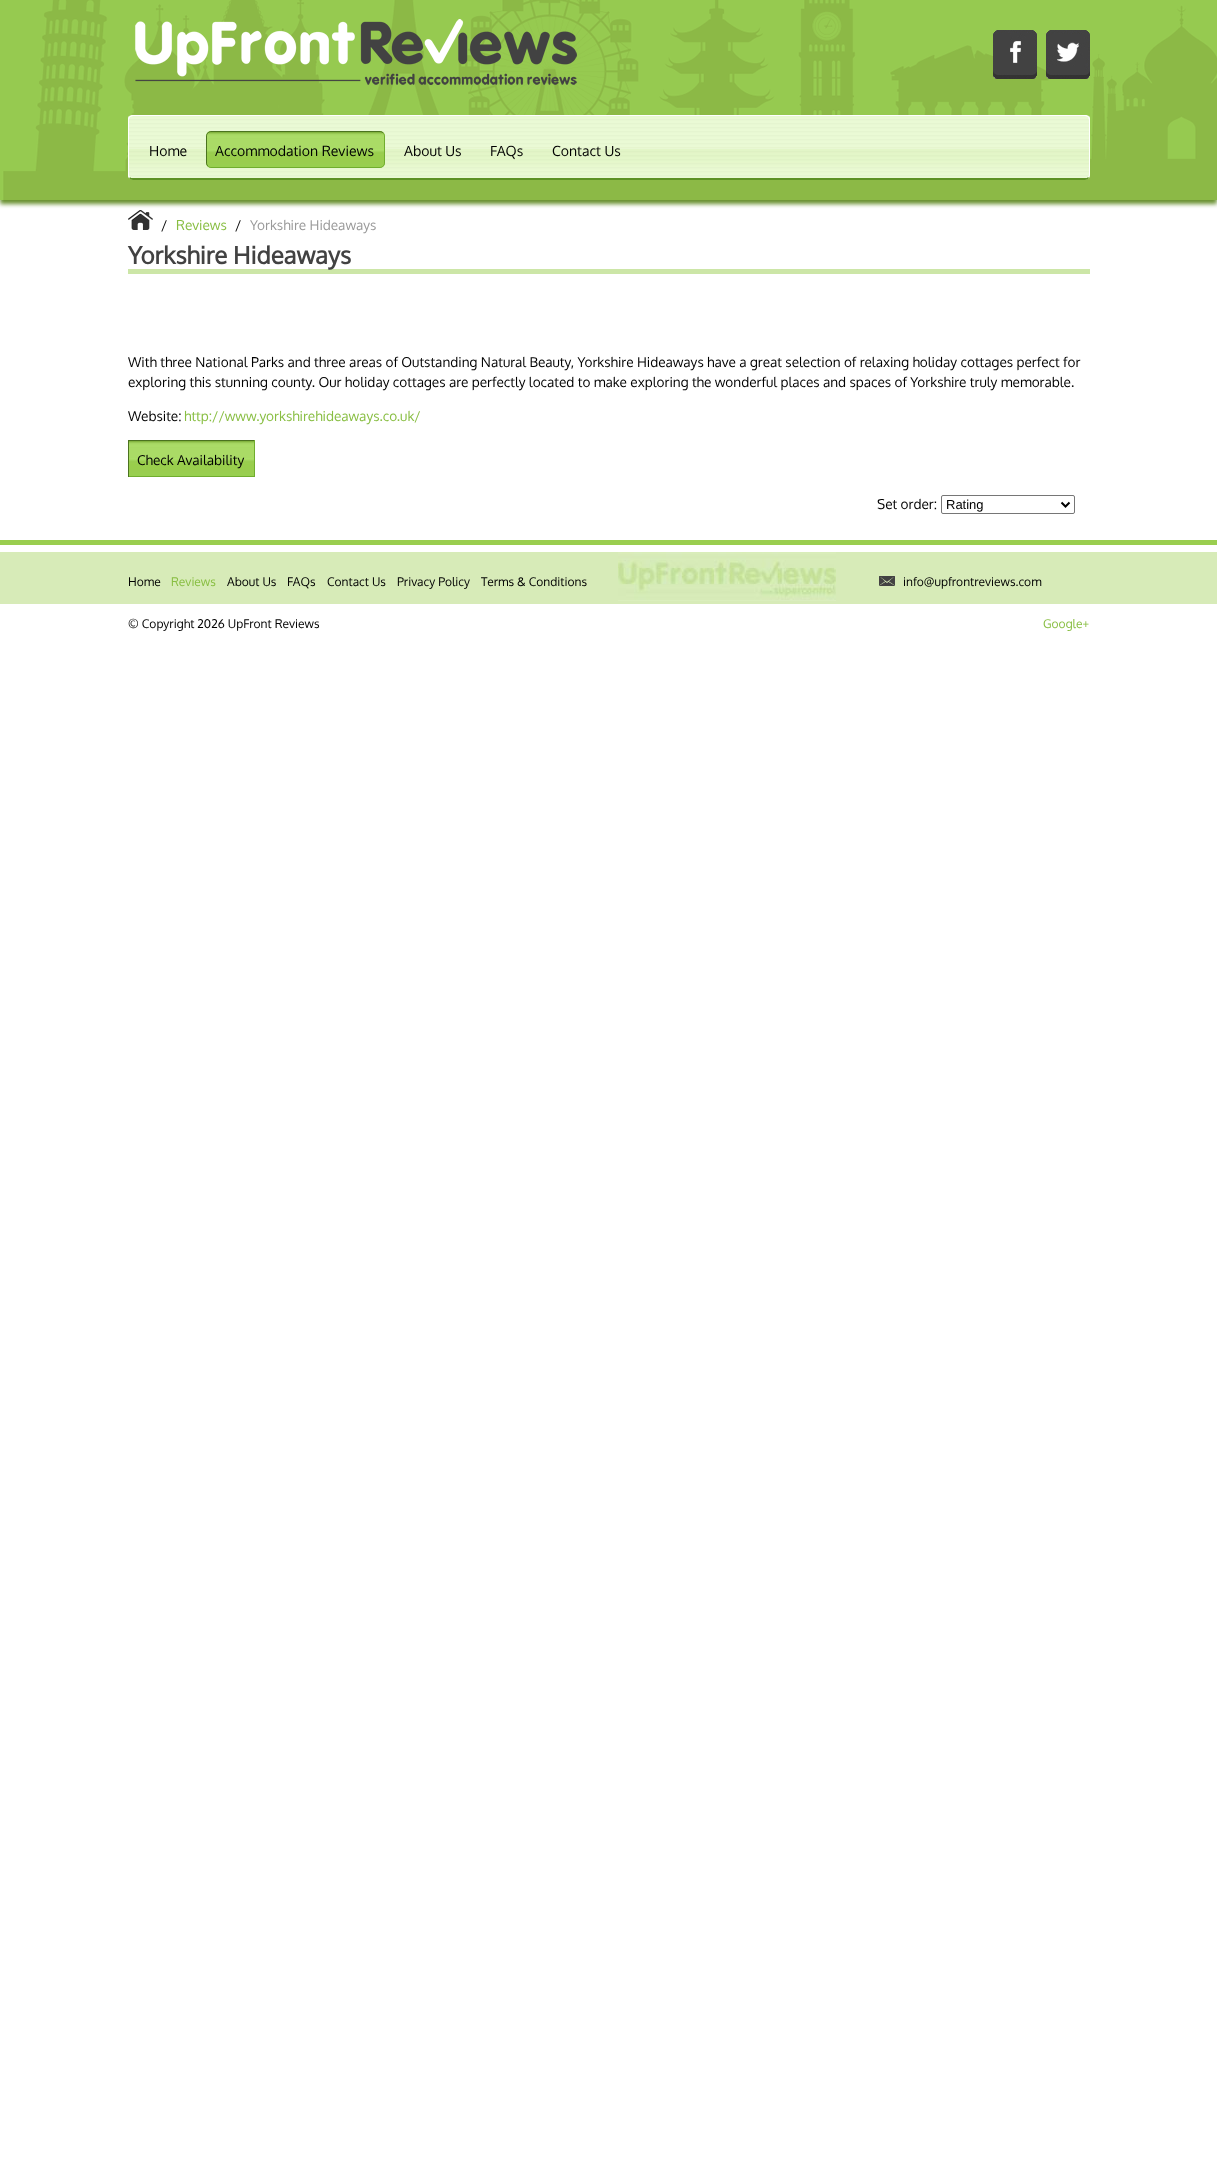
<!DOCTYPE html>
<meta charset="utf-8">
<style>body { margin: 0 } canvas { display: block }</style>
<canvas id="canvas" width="1217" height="2182"></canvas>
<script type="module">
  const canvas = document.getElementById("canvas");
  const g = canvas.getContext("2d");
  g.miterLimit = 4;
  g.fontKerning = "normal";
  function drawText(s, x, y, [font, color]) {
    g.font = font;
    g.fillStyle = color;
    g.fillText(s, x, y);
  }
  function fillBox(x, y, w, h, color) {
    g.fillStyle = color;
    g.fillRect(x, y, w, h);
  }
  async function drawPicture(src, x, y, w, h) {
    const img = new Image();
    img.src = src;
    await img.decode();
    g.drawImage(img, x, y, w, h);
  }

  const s1 = ["14px Oxygen", "#000000"];
  const s2 = ["13.6px Oxygen", "#000000"];
  const s3 = ["13.6px Oxygen", "#88BE42"];
  const s4 = ["13.6px Oxygen", "#999999"];
  const s5 = ["bold 24px Oxygen", "#424242"];
  const s6 = ["13px Liberation Sans", "#000000"];
  const s7 = ["12px Oxygen", "#000000"];
  const s8 = ["12px Oxygen", "#88BE42"];

  fillBox(0, 0, 1217, 2182, "#FFFFFF");
  g.fillStyle = "#678F2E";
  g.filter = "blur(2px)";
  g.beginPath();
  g.rect(0, 4, 1217, 200);
  g.fill();
  g.filter = "none";
  await drawPicture("pic1.png", 0, 0, 1217, 200);
  await drawPicture("pic2.png", 135, 19, 442, 66);
  await drawPicture("pic3.png", 993, 30, 44, 49);
  await drawPicture("pic4.png", 1046, 30, 44, 49);
  await drawPicture("pic5.png", 128, 115, 962, 65);
  g.fillStyle = "#FFFFFF";
  g.beginPath();
  g.moveTo(133, 115);
  g.bezierCurveTo(132, 115, 130, 116, 129, 116);
  g.lineTo(130, 117);
  g.lineTo(133, 116);
  g.lineTo(1085, 116);
  g.lineTo(1088, 117);
  g.lineTo(1089, 116);
  g.bezierCurveTo(1088, 116, 1086, 115, 1085, 115);
  g.closePath();
  g.fill();
  g.beginPath();
  g.moveTo(1090, 175);
  g.lineTo(1090, 120);
  g.bezierCurveTo(1090, 118, 1090, 117, 1089, 116);
  g.lineTo(1088, 117);
  g.lineTo(1089, 120);
  g.lineTo(1089, 175);
  g.lineTo(1088, 177);
  g.lineTo(1089, 178);
  g.closePath();
  g.fill();
  g.fillStyle = "#5D9125";
  g.beginPath();
  g.moveTo(133, 180);
  g.lineTo(1085, 180);
  g.bezierCurveTo(1087, 180, 1088, 179, 1089, 178);
  g.lineTo(1088, 177);
  g.bezierCurveTo(1088, 178, 1086, 178, 1085, 178);
  g.lineTo(133, 178);
  g.bezierCurveTo(132, 178, 130, 178, 130, 177);
  g.lineTo(129, 178);
  g.bezierCurveTo(130, 179, 131, 180, 133, 180);
  g.closePath();
  g.fill();
  g.fillStyle = "#FFFFFF";
  g.beginPath();
  g.moveTo(128, 120);
  g.lineTo(128, 175);
  g.bezierCurveTo(128, 176, 128, 177, 129, 178);
  g.lineTo(130, 177);
  g.lineTo(129, 175);
  g.lineTo(129, 120);
  g.lineTo(130, 117);
  g.lineTo(129, 116);
  g.bezierCurveTo(128, 117, 128, 118, 128, 120);
  g.closePath();
  g.fill();
  drawText("Home", 149, 156, s1);
  await drawPicture("pic6.png", 206, 131, 179, 37);
  g.beginPath();
  g.moveTo(383, 133);
  g.bezierCurveTo(384, 133.5, 384.5, 135, 384.5, 136);
  g.lineTo(384.5, 163);
  g.bezierCurveTo(384.5, 164, 384, 165.5, 383, 166);
  g.bezierCurveTo(382.5, 167, 381, 167.5, 380, 167.5);
  g.lineTo(211, 167.5);
  g.bezierCurveTo(210, 167.5, 208.5, 167, 208, 166);
  g.strokeStyle = "#70AD2E";
  g.stroke();
  g.beginPath();
  g.moveTo(208, 166);
  g.bezierCurveTo(207, 165.5, 206.5, 164, 206.5, 163);
  g.lineTo(206.5, 136);
  g.bezierCurveTo(206.5, 135, 207, 133.5, 208, 133);
  g.bezierCurveTo(208.5, 132, 210, 131.5, 211, 131.5);
  g.lineTo(380, 131.5);
  g.bezierCurveTo(381, 131.5, 382.5, 132, 383, 133);
  g.strokeStyle = "#4B731F";
  g.stroke();
  drawText("Accommodation Reviews", 215, 156, s1);
  drawText("About Us", 404, 156, s1);
  drawText("FAQs", 490, 156, s1);
  drawText("Contact Us", 552, 156, s1);
  await drawPicture("pic7.png", 128, 210, 25, 20);
  drawText("/", 161, 230, s2);
  drawText("Reviews", 176, 230, s3);
  drawText("/", 235, 230, s2);
  drawText("Yorkshire Hideaways", 250, 230, s4);
  fillBox(128, 269, 962, 5, "#CCE6A7");
  drawText("Yorkshire Hideaways", 128, 264, s5);
  drawText("With three National Parks and three areas of Outstanding Natural Beauty, Yorkshire Hideaways have a great selection of relaxing holiday cottages perfect for", 128, 367, s2);
  drawText("exploring this stunning county. Our holiday cottages are perfectly located to make exploring the wonderful places and spaces of Yorkshire truly memorable.", 128, 387, s2);
  drawText("Website:", 128, 421, s2);
  drawText("http://www.yorkshirehideaways.co.uk/", 184, 421, s3);
  await drawPicture("pic8.png", 129, 441, 125, 35);
  drawText("Check Availability", 137, 465, s2);
  fillBox(128, 440, 127, 1, "#4B731F");
  fillBox(254, 440, 1, 37, "#70AD2E");
  fillBox(128, 476, 127, 1, "#70AD2E");
  fillBox(128, 440, 1, 37, "#4B731F");
  drawText("Set order:", 877, 509, s2);
  g.beginPath();
  g.roundRect(941.5, 495.5, 133, 18, 1.5);
  g.strokeStyle = "#767676";
  g.stroke();
  g.beginPath();
  g.moveTo(1061.5, 502.5);
  g.lineTo(1065.5, 506.5);
  g.lineTo(1069.5, 502.5);
  g.strokeStyle = "#000000";
  g.lineWidth = 2;
  g.stroke();
  drawText("Rating", 946, 509, s6);
  fillBox(0, 540, 1217, 5, "#9ACE4F");
  fillBox(0, 552, 1217, 52, "#D7EBB8");
  drawText("Home", 128, 586, s7);
  drawText("Reviews", 171, 586, s8);
  drawText("About Us", 227, 586, s7);
  drawText("FAQs", 287, 586, s7);
  drawText("Contact Us", 327, 586, s7);
  drawText("Privacy Policy", 397, 586, s7);
  drawText("Terms & Conditions", 481, 586, s7);
  await drawPicture("pic9.png", 618, 552, 218, 49);
  await drawPicture("pic10.png", 879, 576, 16, 10);
  drawText("info@upfrontreviews.com", 903, 586, s7);
  drawText("© Copyright 2026 UpFront Reviews", 128, 628, s7);
  drawText("Google+", 1043, 628, s8);
</script>
